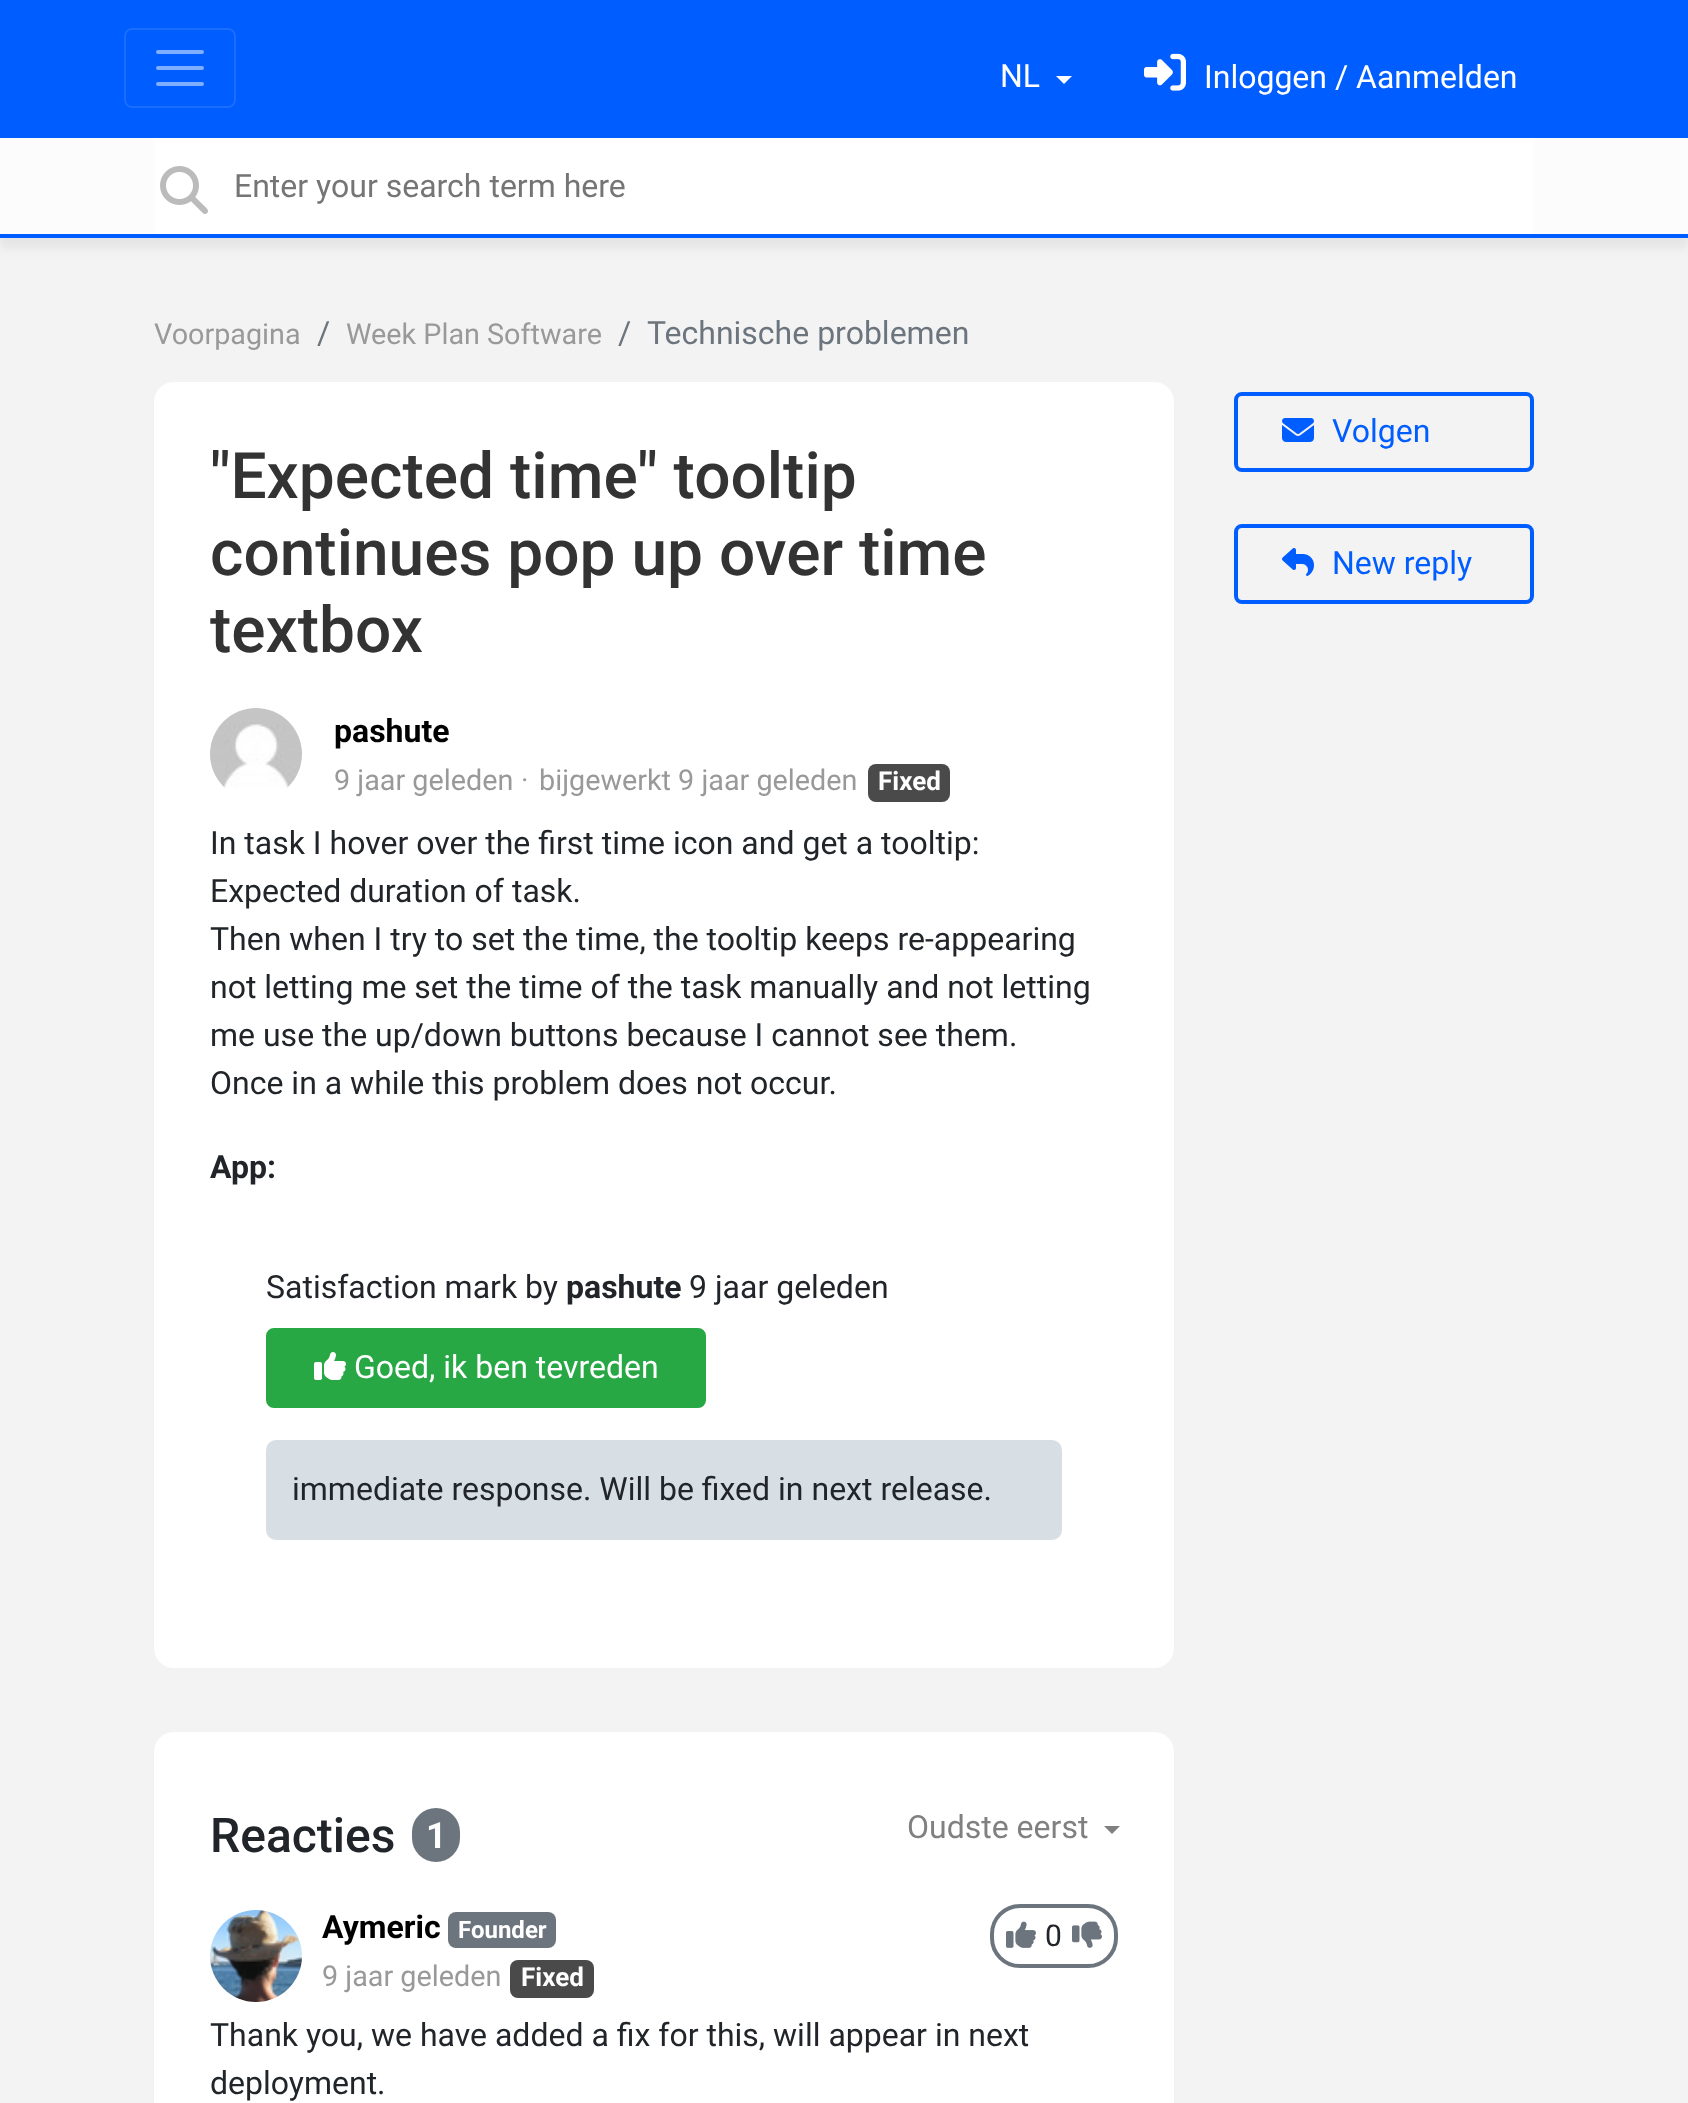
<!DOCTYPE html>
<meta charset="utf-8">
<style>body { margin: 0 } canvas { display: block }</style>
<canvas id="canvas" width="1688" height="2103"></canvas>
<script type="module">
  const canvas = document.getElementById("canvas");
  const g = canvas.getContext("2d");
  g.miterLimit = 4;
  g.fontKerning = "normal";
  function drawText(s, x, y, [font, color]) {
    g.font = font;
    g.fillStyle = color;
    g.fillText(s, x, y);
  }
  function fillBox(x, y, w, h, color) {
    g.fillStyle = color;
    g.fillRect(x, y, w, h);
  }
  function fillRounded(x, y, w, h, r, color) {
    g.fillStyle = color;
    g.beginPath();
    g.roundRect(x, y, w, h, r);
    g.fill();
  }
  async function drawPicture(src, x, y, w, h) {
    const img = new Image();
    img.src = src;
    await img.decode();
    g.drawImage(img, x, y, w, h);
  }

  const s1 = ["32px Roboto", "#FFFFFF"];
  const s2 = ["32px Roboto", "#757575"];
  const s3 = ["28.75px Roboto", "#999999"];
  const s4 = ["32px Roboto", "#6C757D"];
  const s5 = ["500 64px Roboto", "#333333"];
  const s6 = ["bold 32px Roboto", "#000000"];
  const s7 = ["bold 26px Roboto", "#FFFFFF"];
  const s8 = ["32px Roboto", "#212529"];
  const s9 = ["bold 32px Roboto", "#212529"];
  const s10 = ["32px Roboto", "#005DFF"];
  const s11 = ["500 48px Roboto", "#212529"];
  const s12 = ["bold 36px Roboto", "#FFFFFF"];
  const s13 = ["32px Roboto", "#808080"];
  const s14 = ["bold 24px Roboto", "#FFFFFF"];
  const s15 = ["30px Roboto", "#212529"];

  fillBox(0, 0, 1688, 2103, "#F3F3F3");
  fillBox(0, 0, 1688, 138, "#005DFF");
  g.beginPath();
  g.roundRect(125, 29, 110, 78, 7);
  g.strokeStyle = "#1A6DFF";
  g.lineWidth = 2;
  g.stroke();
  g.beginPath();
  g.moveTo(158, 52);
  g.lineTo(202, 52);
  g.moveTo(158, 68);
  g.lineTo(202, 68);
  g.moveTo(158, 84);
  g.lineTo(202, 84);
  g.strokeStyle = "#80AEFF";
  g.lineWidth = 4;
  g.lineCap = "round";
  g.stroke();
  drawText("NL", 1000, 87, s1);
  g.beginPath();
  g.moveTo(1056, 76);
  g.lineTo(1072, 76);
  g.lineTo(1064, 84);
  g.closePath();
  g.fill();
  await drawPicture("pic1.png", 1144, 53, 42, 38);
  drawText("Inloggen / Aanmelden", 1204, 88, s1);
  g.fillStyle = "rgba(100, 100, 100, 0.1)";
  g.filter = "blur(5px)";
  g.beginPath();
  g.rect(0, 148, 1688, 100);
  g.fill();
  g.filter = "none";
  fillBox(0, 138, 1688, 96, "#FCFCFC");
  fillBox(0, 234, 1688, 4, "#005DFF");
  fillBox(154, 138, 1380, 96, "#FFFFFF");
  await drawPicture("pic2.png", 160, 166, 48, 48);
  drawText("Enter your search term here", 234, 197, s2);
  drawText("Voorpagina", 154, 344, s3);
  drawText("/", 317, 344, s4);
  drawText("Week Plan Software", 346, 344, s3);
  drawText("/", 618, 344, s4);
  drawText("Technische problemen", 647, 344, s4);
  fillRounded(154, 382, 1020, 1286, 20, "#FFFFFF");
  drawText("\"Expected time\" tooltip", 210, 498, s5);
  drawText("continues pop up over time", 210, 575, s5);
  drawText("textbox", 210, 652, s5);
  await drawPicture("pic3.png", 210, 708, 92, 80);
  drawText("pashute", 334, 742, s6);
  drawText("9 jaar geleden", 334, 790, s3);
  drawText("·", 521, 790, s3);
  drawText("bijgewerkt 9 jaar geleden", 539, 790, s3);
  fillRounded(868, 764, 82, 38, 8, "#4A4A4A");
  drawText("Fixed", 878, 790, s7);
  drawText("In task I hover over the first time icon and get a tooltip:", 210, 854, s8);
  drawText("Expected duration of task.", 210, 902, s8);
  drawText("Then when I try to set the time, the tooltip keeps re-appearing", 210, 950, s8);
  drawText("not letting me set the time of the task manually and not letting", 210, 998, s8);
  drawText("me use the up/down buttons because I cannot see them.", 210, 1046, s8);
  drawText("Once in a while this problem does not occur.", 210, 1094, s8);
  drawText("App:", 210, 1178, s9);
  drawText("Satisfaction mark by", 266, 1298, s8);
  drawText("pashute", 566, 1298, s9);
  drawText("9 jaar geleden", 689, 1298, s8);
  g.fillStyle = "#28A745";
  g.beginPath();
  g.roundRect(268, 1330, 436, 76, 6);
  g.fill();
  g.strokeStyle = "#28A745";
  g.stroke();
  await drawPicture("pic4.png", 314, 1352, 32, 28);
  drawText("Goed, ik ben tevreden", 354, 1378, s1);
  fillRounded(266, 1440, 796, 100, 10, "#D7DFE5");
  drawText("immediate response. Will be fixed in next release.", 292, 1500, s8);
  g.beginPath();
  g.roundRect(1236, 394, 296, 76, 6);
  g.strokeStyle = "#005DFF";
  g.stroke();
  await drawPicture("pic5.png", 1282, 418, 32, 24);
  drawText("Volgen", 1332, 442, s10);
  g.beginPath();
  g.roundRect(1236, 526, 296, 76, 6);
  g.stroke();
  await drawPicture("pic6.png", 1282, 548, 32, 28);
  drawText("New reply", 1332, 574, s10);
  fillRounded(154, 1732, 1020, 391, 20, "#FFFFFF");
  drawText("Reacties", 210, 1852, s11);
  fillRounded(412, 1808, 48, 54, 24, "#6C757D");
  drawText("1", 426, 1848, s12);
  drawText("Oudste eerst", 907, 1838, s13);
  g.beginPath();
  g.moveTo(1104, 1826);
  g.lineTo(1120, 1826);
  g.lineTo(1112, 1834);
  g.closePath();
  g.fill();
  await drawPicture("pic7.png", 210, 1910, 92, 92);
  drawText("Aymeric", 322, 1938, s6);
  fillRounded(448, 1912, 108, 36, 8, "#6C757D");
  drawText("Founder", 458, 1938, s14);
  drawText("9 jaar geleden", 322, 1986, s3);
  fillRounded(510, 1960, 84, 38, 8, "#4A4A4A");
  drawText("Fixed", 521, 1986, s7);
  g.beginPath();
  g.roundRect(992, 1906, 124, 60, 28);
  g.strokeStyle = "#6C757D";
  g.stroke();
  await drawPicture("pic8.png", 1006, 1921, 30, 27);
  drawText("0", 1045, 1946, s15);
  await drawPicture("pic9.png", 1072, 1921, 30, 27);
  drawText("Thank you, we have added a fix for this, will appear in next", 210, 2046, s8);
  drawText("deployment.", 210, 2094, s8);
</script>
